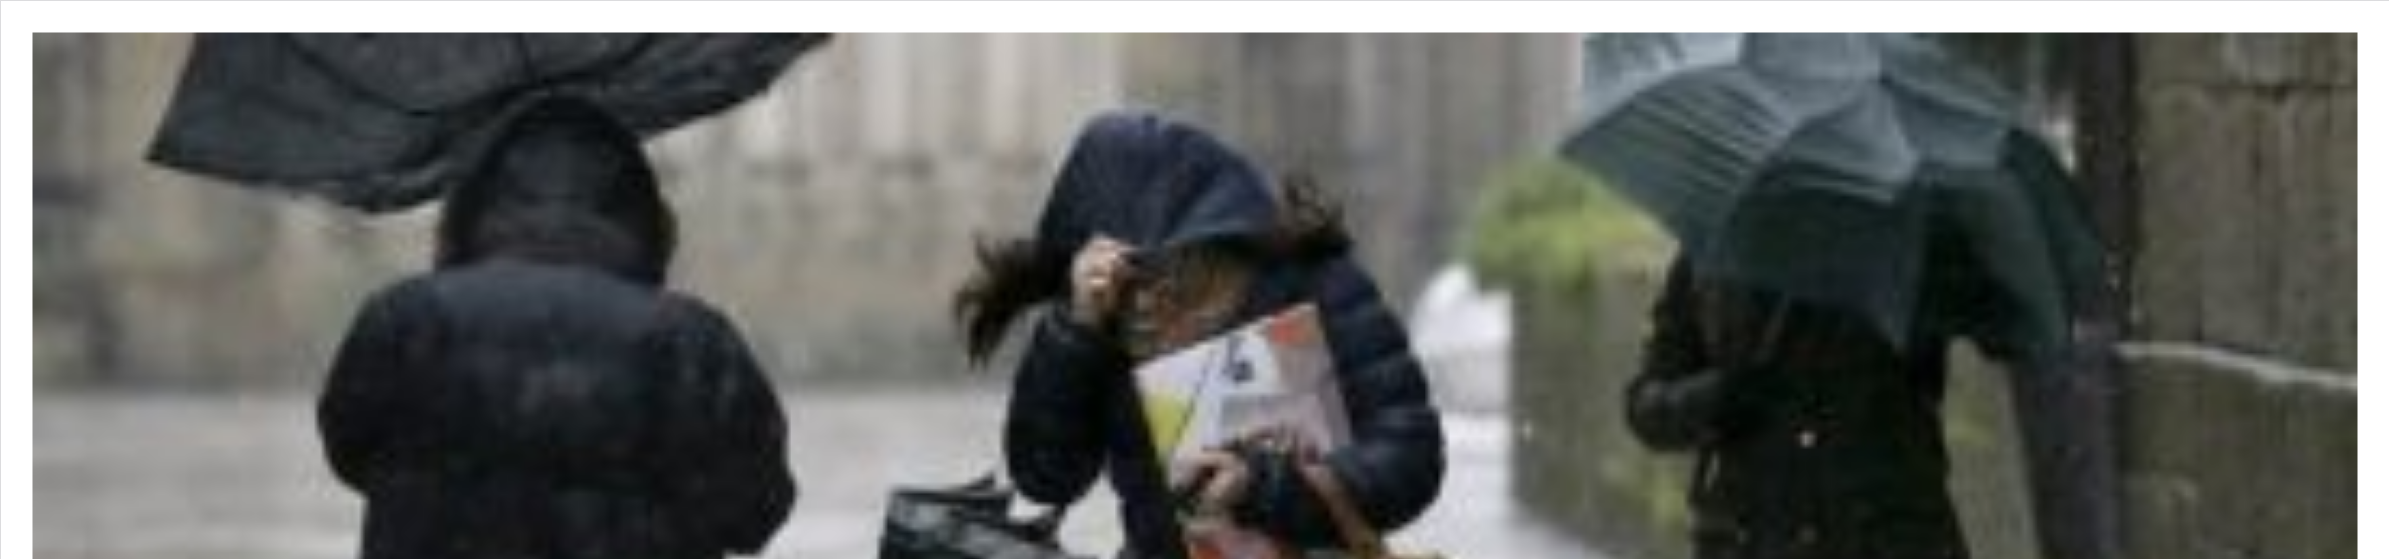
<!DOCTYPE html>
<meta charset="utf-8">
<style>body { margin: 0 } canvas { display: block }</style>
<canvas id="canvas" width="2389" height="559"></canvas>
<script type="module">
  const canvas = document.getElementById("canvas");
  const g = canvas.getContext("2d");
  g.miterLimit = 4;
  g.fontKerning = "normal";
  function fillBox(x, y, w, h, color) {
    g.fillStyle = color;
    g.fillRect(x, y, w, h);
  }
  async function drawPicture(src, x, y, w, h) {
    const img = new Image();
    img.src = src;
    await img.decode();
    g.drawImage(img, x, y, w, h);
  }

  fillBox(0, 0, 2389, 559, "#FFFFFF");
  g.strokeStyle = "#DCDCDE";
  g.strokeRect(0.5, 0.5, 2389, 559);
  await drawPicture("pic1.png", 32, 32, 2326, 527);
</script>
